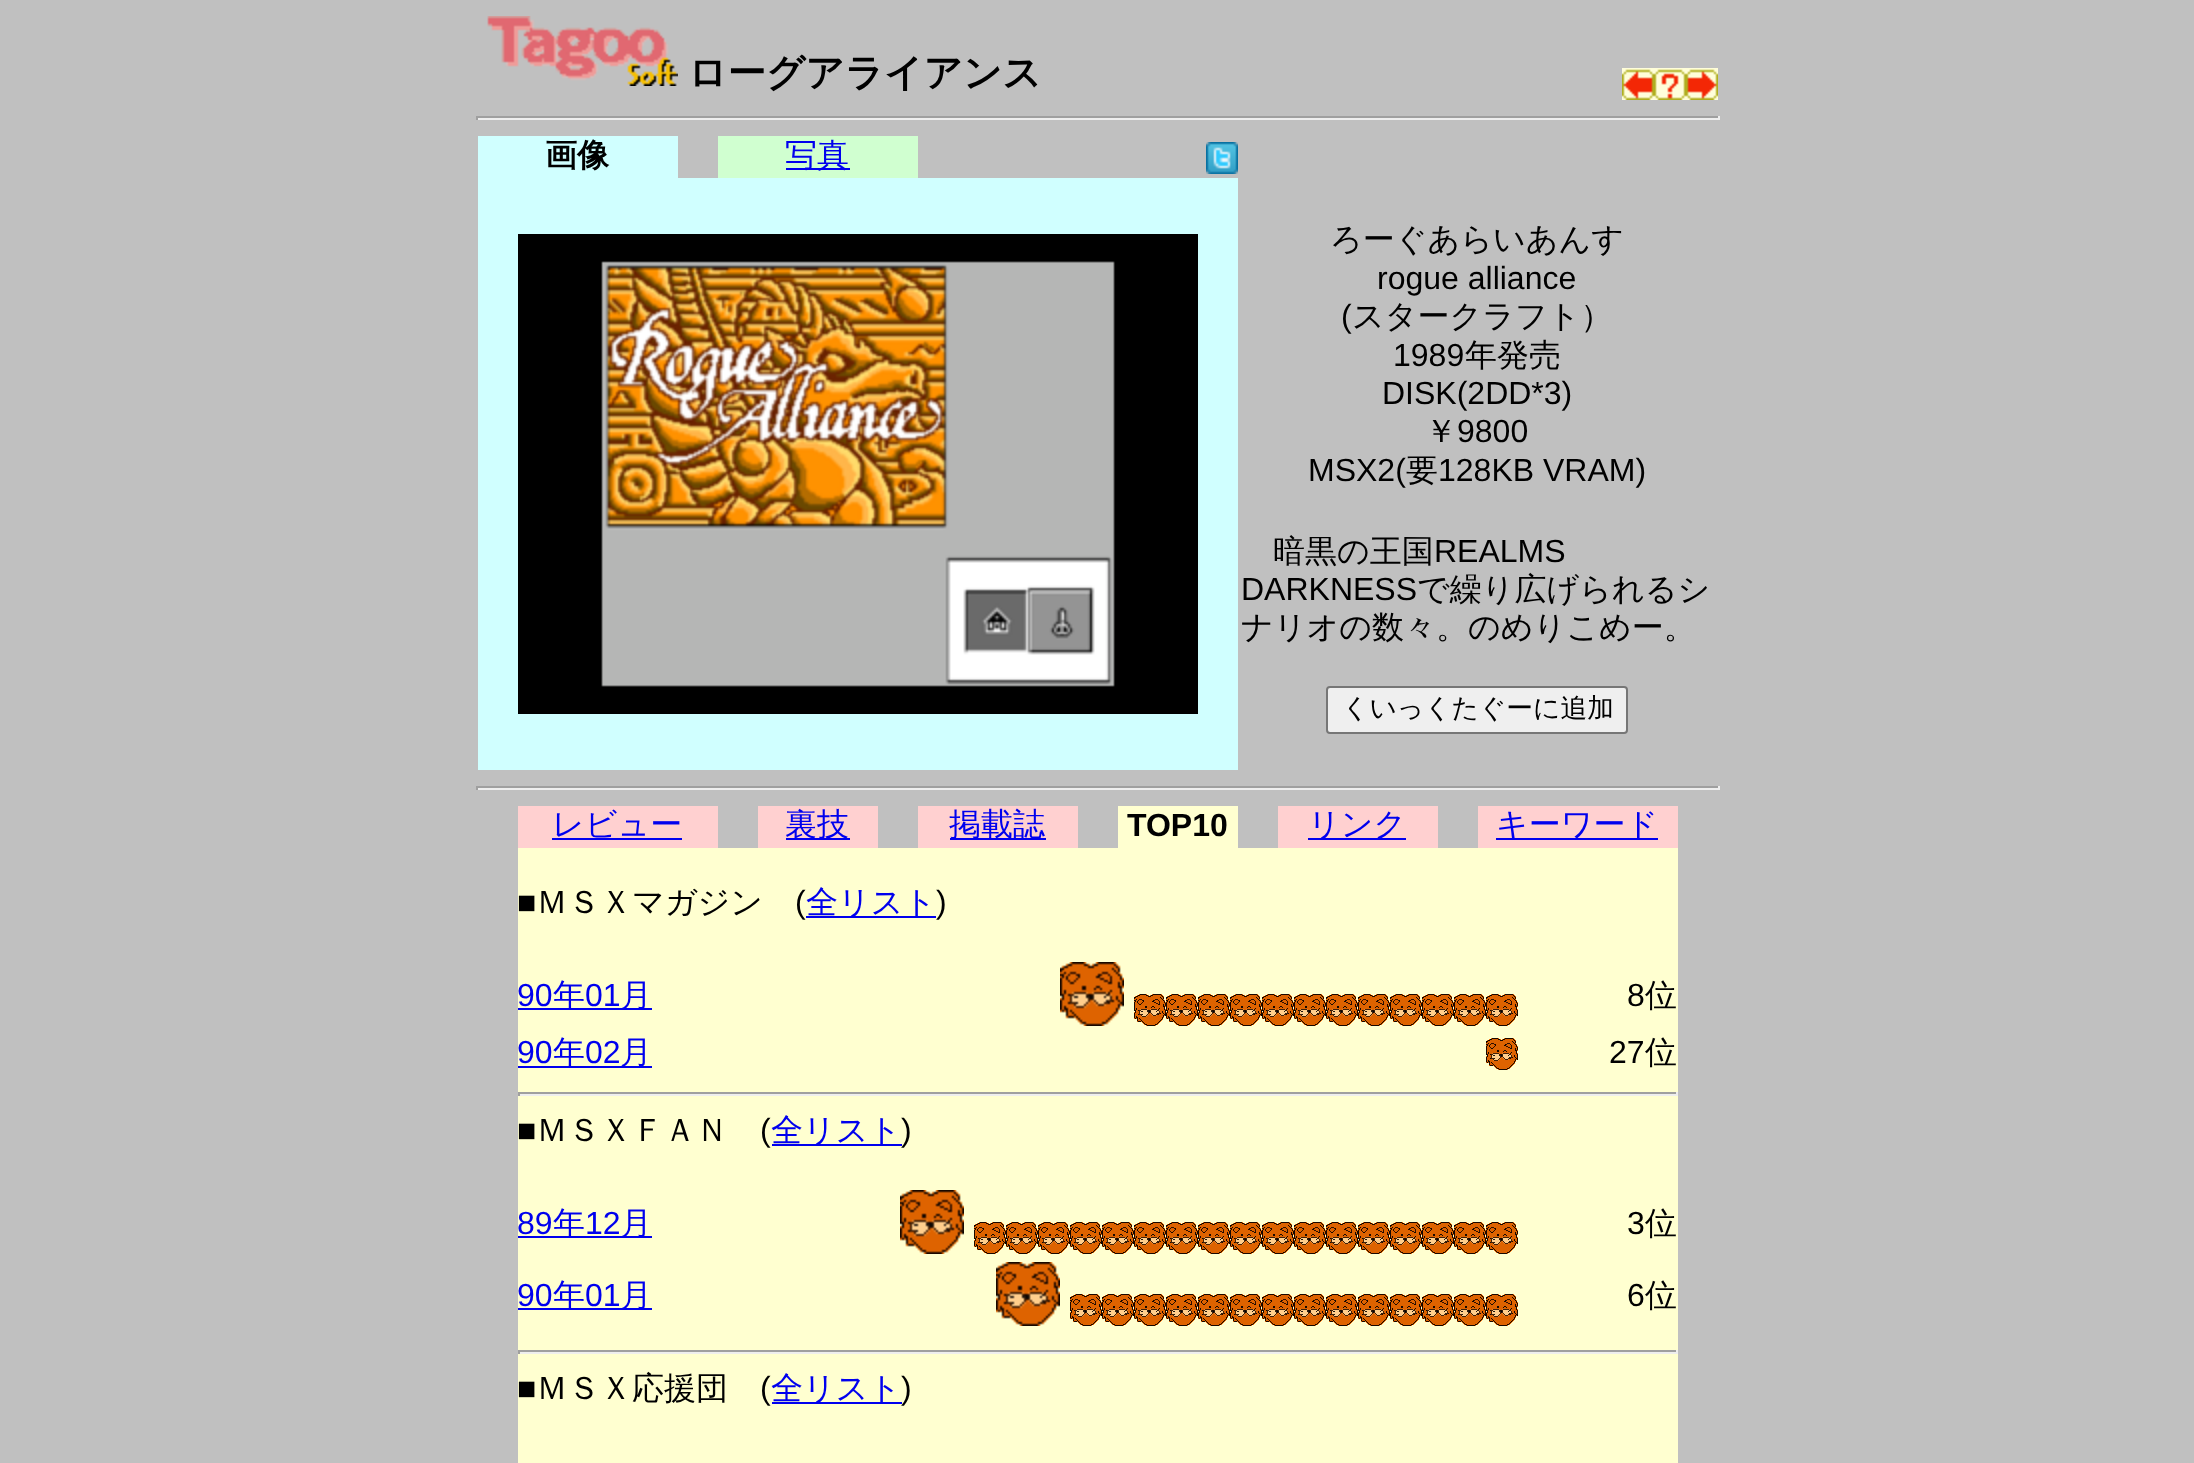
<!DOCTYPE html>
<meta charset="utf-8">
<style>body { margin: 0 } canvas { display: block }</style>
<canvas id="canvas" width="2194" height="1463"></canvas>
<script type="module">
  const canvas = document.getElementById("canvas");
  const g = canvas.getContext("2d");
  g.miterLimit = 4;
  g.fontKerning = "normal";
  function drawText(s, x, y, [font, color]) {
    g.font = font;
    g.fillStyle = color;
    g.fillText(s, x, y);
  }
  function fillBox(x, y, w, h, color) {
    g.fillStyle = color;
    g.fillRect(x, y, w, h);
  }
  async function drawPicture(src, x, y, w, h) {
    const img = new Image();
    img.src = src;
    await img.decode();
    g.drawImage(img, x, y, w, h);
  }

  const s1 = ["bold 38.5px WenQuanYi Zen Hei", "#000000"];
  const s2 = ["bold 32px WenQuanYi Zen Hei", "#000000"];
  const s3 = ["500 32px WenQuanYi Zen Hei", "#0000EE"];
  const s4 = ["500 32px WenQuanYi Zen Hei", "#000000"];
  const s5 = ["32px Liberation Sans", "#000000"];
  const s6 = ["500 26.75px WenQuanYi Zen Hei", "#000000"];
  const s7 = ["bold 32px Liberation Sans", "#000000"];
  const s8 = ["32px Liberation Sans", "#0000EE"];

  fillBox(0, 0, 2194, 1463, "#C0C0C0");
  await drawPicture("pic1.png", 487, 16, 191, 70);
  drawText("ローグアライアンス", 688, 86, s1);
  await drawPicture("pic2.png", 1622, 68, 32, 32);
  await drawPicture("pic3.png", 1654, 68, 32, 32);
  await drawPicture("pic4.png", 1686, 68, 32, 32);
  fillBox(476, 116, 1244, 2, "#9F9F9F");
  fillBox(1718, 116, 2, 4, "#EEEEEE");
  fillBox(476, 118, 1244, 2, "#EEEEEE");
  fillBox(476, 116, 2, 4, "#9F9F9F");
  fillBox(478, 136, 200, 42, "#D0FFFF");
  drawText("画像", 545, 166, s2);
  fillBox(718, 136, 200, 42, "#D0FFD0");
  fillBox(786, 168, 64, 2, "#0000EE");
  drawText("写真", 785, 166, s3);
  await drawPicture("pic5.png", 1206, 142, 32, 32);
  fillBox(478, 178, 760, 592, "#D0FFFF");
  await drawPicture("pic6.png", 518, 234, 680, 480);
  drawText("ろーぐあらいあんす", 1330, 250, s4);
  drawText("rogue alliance", 1377, 289, s5);
  drawText("(", 1341, 327, s5);
  drawText("スタークラフト）", 1352, 327, s4);
  drawText("1989", 1393, 366, s5);
  drawText("年発売", 1465, 366, s4);
  drawText("DISK(2DD*3)", 1382, 404, s5);
  drawText("￥", 1425, 442, s4);
  drawText("9800", 1457, 442, s5);
  drawText("MSX2(", 1308, 481, s5);
  drawText("要", 1406, 481, s4);
  drawText("128KB VRAM)", 1438, 481, s5);
  drawText("暗黒の王国", 1273, 562, s4);
  drawText("REALMS", 1434, 562, s5);
  drawText("DARKNESS", 1241, 600, s5);
  drawText("で繰り広げられるシ", 1417, 600, s4);
  drawText("ナリオの数々。のめりこめー。", 1241, 638, s4);
  g.fillStyle = "#EFEFEF";
  g.beginPath();
  g.roundRect(1327, 687, 300, 46, 3);
  g.fill();
  g.strokeStyle = "#767676";
  g.lineWidth = 2;
  g.stroke();
  drawText("くいっくたぐーに追加", 1342, 717, s6);
  fillBox(476, 786, 1244, 2, "#9F9F9F");
  fillBox(1718, 786, 2, 4, "#EEEEEE");
  fillBox(476, 788, 1244, 2, "#EEEEEE");
  fillBox(476, 786, 2, 4, "#9F9F9F");
  fillBox(518, 806, 200, 42, "#FFD0D0");
  drawText("レビュー", 552, 835, s3);
  fillBox(552, 838, 130, 2, "#0000EE");
  fillBox(758, 806, 120, 42, "#FFD0D0");
  fillBox(786, 838, 64, 2, "#0000EE");
  drawText("裏技", 785, 835, s3);
  fillBox(918, 806, 160, 42, "#FFD0D0");
  fillBox(950, 838, 96, 2, "#0000EE");
  drawText("掲載誌", 949, 835, s3);
  fillBox(1118, 806, 120, 42, "#FFFFD0");
  drawText("TOP10", 1127, 836, s7);
  fillBox(1278, 806, 160, 42, "#FFD0D0");
  fillBox(1308, 838, 98, 2, "#0000EE");
  drawText("リンク", 1308, 835, s3);
  fillBox(1478, 806, 200, 42, "#FFD0D0");
  fillBox(1496, 838, 162, 2, "#0000EE");
  drawText("キーワード", 1496, 835, s3);
  fillBox(518, 848, 1160, 615, "#FFFFD0");
  drawText("■", 517, 913, s5);
  drawText("ＭＳＸマガジン", 536, 913, s4);
  drawText("(", 795, 913, s5);
  fillBox(806, 916, 130, 2, "#0000EE");
  drawText("全リスト", 806, 913, s3);
  drawText(")", 936, 913, s5);
  drawText("90", 517, 1006, s8);
  fillBox(518, 1008, 134, 2, "#0000EE");
  drawText("年", 553, 1006, s3);
  drawText("01", 585, 1006, s8);
  drawText("月", 620, 1006, s3);
  await drawPicture("pic7.png", 1060, 962, 64, 64);
  await drawPicture("pic8.png", 1134, 994, 32, 32);
  await drawPicture("pic8.png", 1166, 994, 32, 32);
  await drawPicture("pic8.png", 1198, 994, 32, 32);
  await drawPicture("pic8.png", 1230, 994, 32, 32);
  await drawPicture("pic8.png", 1262, 994, 32, 32);
  await drawPicture("pic8.png", 1294, 994, 32, 32);
  await drawPicture("pic8.png", 1326, 994, 32, 32);
  await drawPicture("pic8.png", 1358, 994, 32, 32);
  await drawPicture("pic8.png", 1390, 994, 32, 32);
  await drawPicture("pic8.png", 1422, 994, 32, 32);
  await drawPicture("pic8.png", 1454, 994, 32, 32);
  await drawPicture("pic8.png", 1486, 994, 32, 32);
  drawText("8", 1627, 1006, s5);
  drawText("位", 1645, 1006, s4);
  drawText("90", 517, 1063, s8);
  fillBox(518, 1066, 134, 2, "#0000EE");
  drawText("年", 553, 1063, s3);
  drawText("02", 585, 1063, s8);
  drawText("月", 620, 1063, s3);
  await drawPicture("pic8.png", 1486, 1038, 32, 32);
  drawText("27", 1609, 1063, s5);
  drawText("位", 1645, 1063, s4);
  fillBox(518, 1092, 1160, 2, "#9F9F9F");
  fillBox(1676, 1092, 2, 4, "#EEEEEE");
  fillBox(518, 1094, 1160, 2, "#EEEEEE");
  fillBox(518, 1092, 2, 4, "#9F9F9F");
  drawText("■", 517, 1141, s5);
  drawText("ＭＳＸＦＡＮ", 536, 1141, s4);
  drawText("(", 760, 1141, s5);
  fillBox(772, 1144, 130, 2, "#0000EE");
  drawText("全リスト", 771, 1141, s3);
  drawText(")", 901, 1141, s5);
  drawText("89", 517, 1234, s8);
  fillBox(518, 1236, 134, 2, "#0000EE");
  drawText("年", 553, 1234, s3);
  drawText("12", 585, 1234, s8);
  drawText("月", 620, 1234, s3);
  await drawPicture("pic7.png", 900, 1190, 64, 64);
  await drawPicture("pic8.png", 974, 1222, 32, 32);
  await drawPicture("pic8.png", 1006, 1222, 32, 32);
  await drawPicture("pic8.png", 1038, 1222, 32, 32);
  await drawPicture("pic8.png", 1070, 1222, 32, 32);
  await drawPicture("pic8.png", 1102, 1222, 32, 32);
  await drawPicture("pic8.png", 1134, 1222, 32, 32);
  await drawPicture("pic8.png", 1166, 1222, 32, 32);
  await drawPicture("pic8.png", 1198, 1222, 32, 32);
  await drawPicture("pic8.png", 1230, 1222, 32, 32);
  await drawPicture("pic8.png", 1262, 1222, 32, 32);
  await drawPicture("pic8.png", 1294, 1222, 32, 32);
  await drawPicture("pic8.png", 1326, 1222, 32, 32);
  await drawPicture("pic8.png", 1358, 1222, 32, 32);
  await drawPicture("pic8.png", 1390, 1222, 32, 32);
  await drawPicture("pic8.png", 1422, 1222, 32, 32);
  await drawPicture("pic8.png", 1454, 1222, 32, 32);
  await drawPicture("pic8.png", 1486, 1222, 32, 32);
  drawText("3", 1627, 1234, s5);
  drawText("位", 1645, 1234, s4);
  drawText("90", 517, 1306, s8);
  fillBox(518, 1308, 134, 2, "#0000EE");
  drawText("年", 553, 1306, s3);
  drawText("01", 585, 1306, s8);
  drawText("月", 620, 1306, s3);
  await drawPicture("pic7.png", 996, 1262, 64, 64);
  await drawPicture("pic8.png", 1070, 1294, 32, 32);
  await drawPicture("pic8.png", 1102, 1294, 32, 32);
  await drawPicture("pic8.png", 1134, 1294, 32, 32);
  await drawPicture("pic8.png", 1166, 1294, 32, 32);
  await drawPicture("pic8.png", 1198, 1294, 32, 32);
  await drawPicture("pic8.png", 1230, 1294, 32, 32);
  await drawPicture("pic8.png", 1262, 1294, 32, 32);
  await drawPicture("pic8.png", 1294, 1294, 32, 32);
  await drawPicture("pic8.png", 1326, 1294, 32, 32);
  await drawPicture("pic8.png", 1358, 1294, 32, 32);
  await drawPicture("pic8.png", 1390, 1294, 32, 32);
  await drawPicture("pic8.png", 1422, 1294, 32, 32);
  await drawPicture("pic8.png", 1454, 1294, 32, 32);
  await drawPicture("pic8.png", 1486, 1294, 32, 32);
  drawText("6", 1627, 1306, s5);
  drawText("位", 1645, 1306, s4);
  fillBox(518, 1350, 1160, 2, "#9F9F9F");
  fillBox(1676, 1350, 2, 4, "#EEEEEE");
  fillBox(518, 1352, 1160, 2, "#EEEEEE");
  fillBox(518, 1350, 2, 4, "#9F9F9F");
  drawText("■", 517, 1399, s5);
  drawText("ＭＳＸ応援団", 536, 1399, s4);
  drawText("(", 760, 1399, s5);
  fillBox(772, 1402, 130, 2, "#0000EE");
  drawText("全リスト", 771, 1399, s3);
  drawText(")", 901, 1399, s5);
</script>
